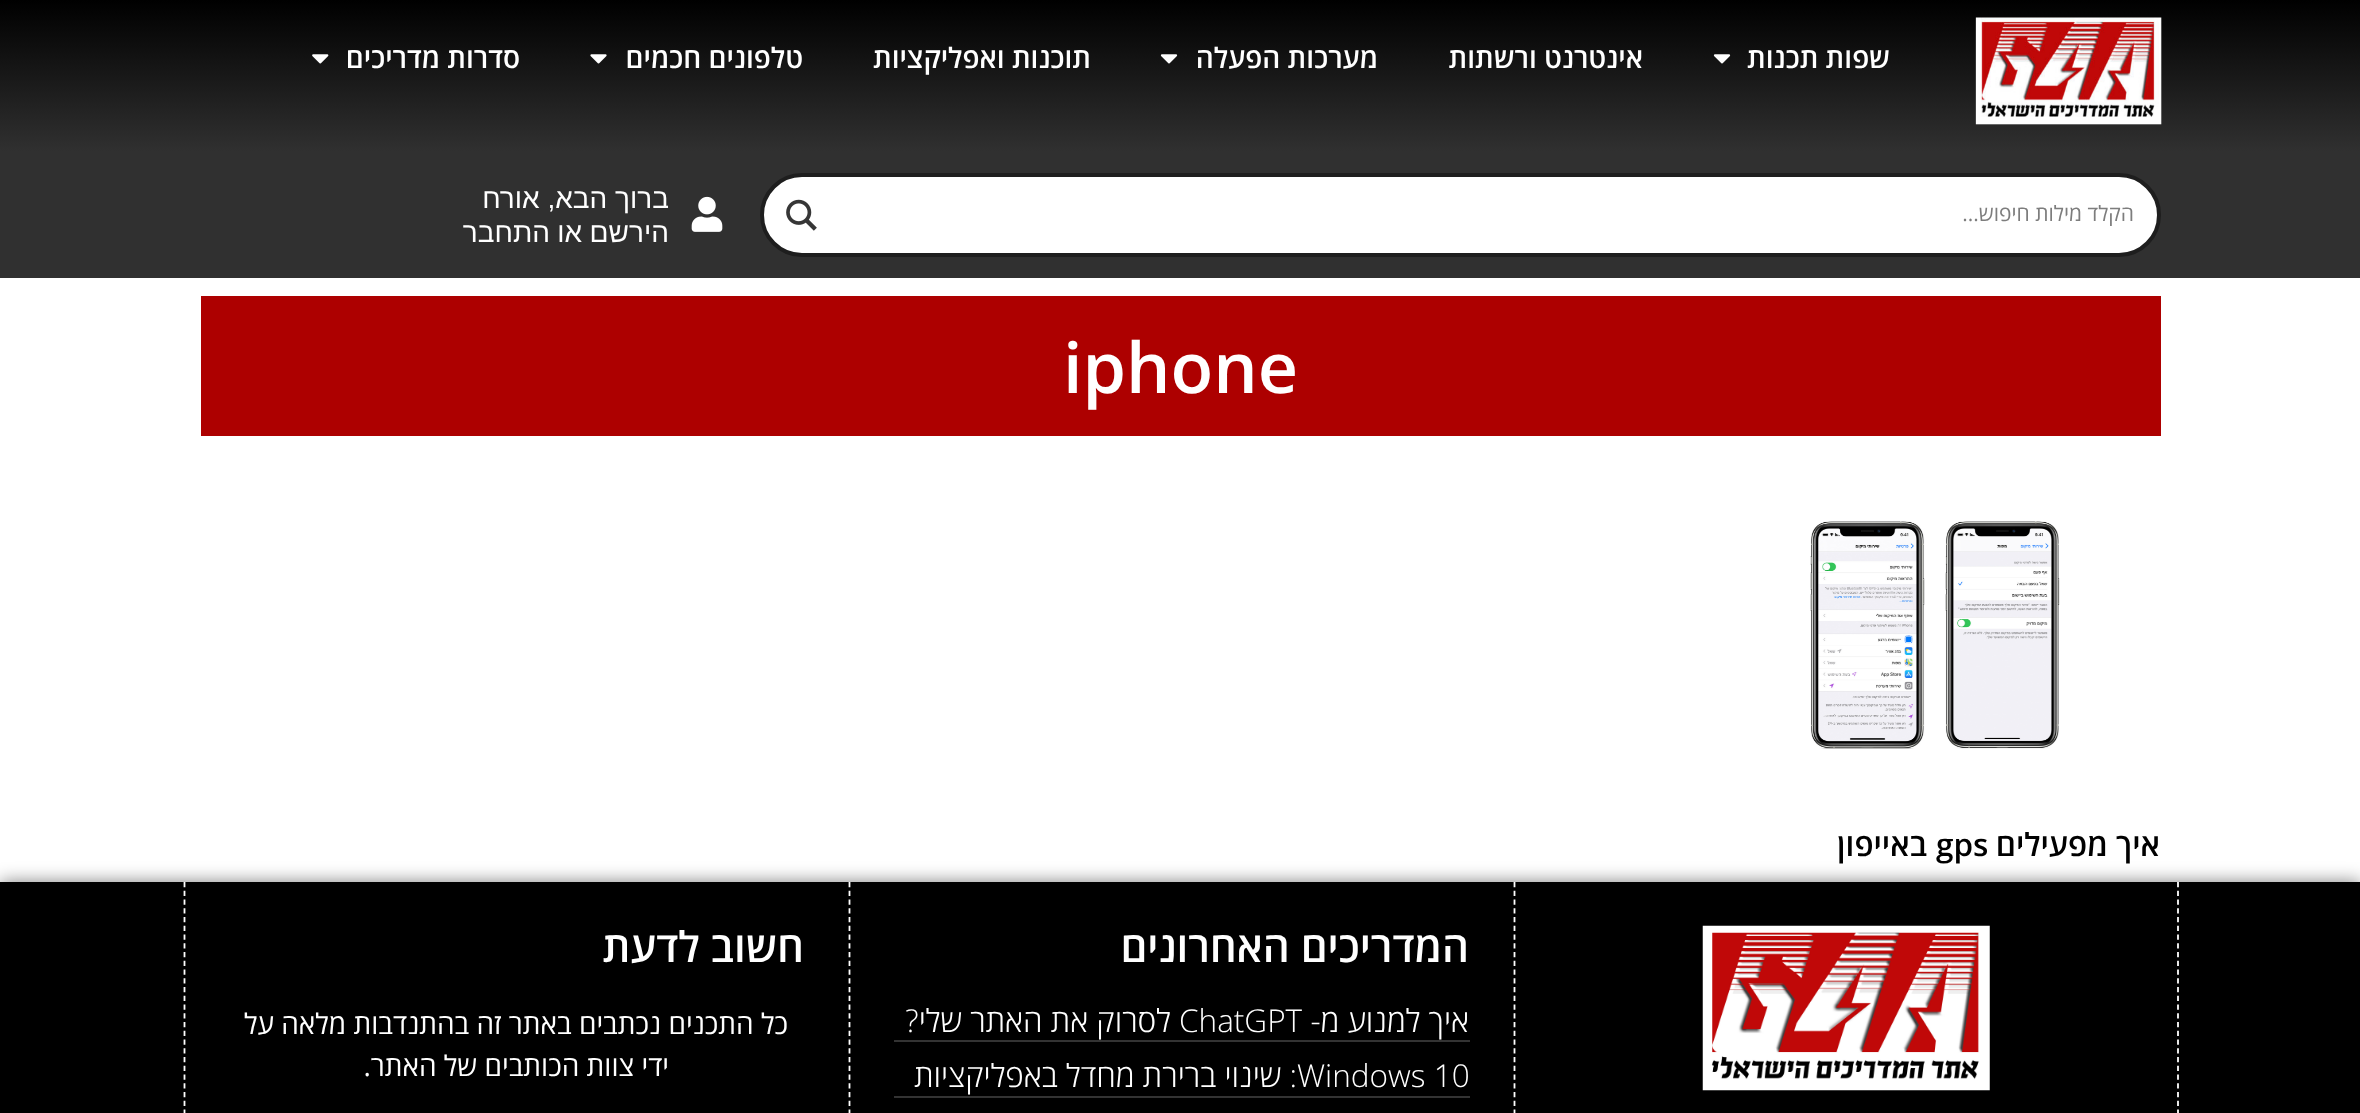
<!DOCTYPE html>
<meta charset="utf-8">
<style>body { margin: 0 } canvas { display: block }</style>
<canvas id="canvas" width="2360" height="1113"></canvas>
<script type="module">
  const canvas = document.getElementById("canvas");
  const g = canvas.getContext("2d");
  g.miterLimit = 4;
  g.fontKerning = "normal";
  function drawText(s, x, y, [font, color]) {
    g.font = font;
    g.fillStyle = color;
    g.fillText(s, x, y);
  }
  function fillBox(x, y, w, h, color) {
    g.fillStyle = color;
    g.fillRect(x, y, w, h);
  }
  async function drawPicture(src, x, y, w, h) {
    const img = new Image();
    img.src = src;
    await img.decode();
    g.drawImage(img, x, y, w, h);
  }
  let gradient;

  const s1 = ["600 28px Open Sans", "#FFFFFF"];
  const s2 = ["21px Open Sans", "#7D7D7D"];
  const s3 = ["28px Liberation Sans", "#FFFFFF"];
  const s4 = ["600 70px Open Sans", "#FFFFFF"];
  const s5 = ["600 31.5px Open Sans", "#000000"];
  const s6 = ["600 42px Open Sans", "#FFFFFF"];
  const s7 = ["300 31.5px Open Sans", "#FFFFFF"];
  const s8 = ["28px Open Sans", "#FFFFFF"];

  fillBox(0, 0, 2360, 1113, "#FFFFFF");
  gradient = g.createLinearGradient(1180, 0, 1180, 151);
  gradient.addColorStop(0, "#000000");
  gradient.addColorStop(1, "#303030");
  g.fillStyle = gradient;
  g.fillRect(0, 0, 2360, 151);
  await drawPicture("pic1.png", 1975, 17, 187, 108);
  g.direction = "rtl";
  drawText("שפות תכנות", 1890, 68, s1);
  await drawPicture("pic2.png", 1713, 54, 18, 10);
  drawText("אינטרנט ורשתות", 1643, 68, s1);
  drawText("מערכות הפעלה", 1378, 68, s1);
  await drawPicture("pic2.png", 1160, 54, 18, 10);
  drawText("תוכנות ואפליקציות", 1091, 68, s1);
  drawText("טלפונים חכמים", 803, 68, s1);
  await drawPicture("pic3.png", 590, 54, 17, 10);
  drawText("סדרות מדריכים", 520, 68, s1);
  await drawPicture("pic4.png", 312, 54, 17, 10);
  fillBox(0, 151, 2360, 127, "#303030");
  g.fillStyle = "#FFFFFF";
  g.beginPath();
  g.roundRect(762, 175, 1397, 80, 40);
  g.fill();
  g.strokeStyle = "#1E1E1E";
  g.lineWidth = 4;
  g.stroke();
  drawText("הקלד מילות חיפוש...", 2134, 221, s2);
  await drawPicture("pic5.png", 786, 199, 31, 32);
  await drawPicture("pic6.png", 691, 196, 32, 36);
  drawText("ברוך הבא, אורח", 669, 208, s3);
  drawText("הירשם", 669, 242, s3);
  drawText("או", 582, 242, s3);
  drawText("התחבר", 550, 242, s3);
  fillBox(201, 296, 1960, 140, "#AD0000");
  g.direction = "ltr";
  drawText("iphone", 1063, 393, s4);
  await drawPicture("pic7.png", 1810, 521, 250, 228);
  g.direction = "rtl";
  drawText("איך מפעילים", 2160, 856, s5);
  g.direction = "ltr";
  drawText("gps", 1936, 856, s5);
  g.direction = "rtl";
  drawText("באייפון", 1927, 856, s5);
  g.fillStyle = "rgba(0, 0, 0, 0.5)";
  g.filter = "blur(9px)";
  g.beginPath();
  g.rect(0, 882, 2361, 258);
  g.fill();
  g.filter = "none";
  fillBox(0, 882, 2360, 231, "#000000");
  g.beginPath();
  g.moveTo(2178, 882);
  g.lineTo(2178, 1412);
  g.strokeStyle = "#FFFFFF";
  g.lineWidth = 1.8;
  g.setLineDash([5.25, 3.5]);
  g.stroke();
  g.beginPath();
  g.moveTo(1514.5, 882);
  g.lineTo(1514.5, 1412);
  g.stroke();
  await drawPicture("pic8.png", 1702, 925, 288, 166);
  g.beginPath();
  g.moveTo(849.5, 882);
  g.lineTo(849.5, 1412);
  g.stroke();
  drawText("המדריכים האחרונים", 1469, 962, s6);
  fillBox(894, 1040, 576, 2, "#333333");
  drawText("איך למנוע מ-", 1469, 1032, s7);
  g.direction = "ltr";
  drawText("ChatGPT", 1179, 1032, s7);
  g.direction = "rtl";
  drawText("לסרוק את האתר שלי?", 1171, 1032, s7);
  fillBox(894, 1096, 576, 2, "#333333");
  g.direction = "ltr";
  drawText("Windows 10", 1297, 1087, s7);
  g.direction = "rtl";
  drawText(": שינוי ברירת מחדל באפליקציות", 1297, 1087, s7);
  g.beginPath();
  g.moveTo(184.5, 882);
  g.lineTo(184.5, 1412);
  g.stroke();
  drawText("חשוב לדעת", 804, 962, s6);
  drawText("כל התכנים נכתבים באתר זה בהתנדבות מלאה על", 788, 1034, s8);
  drawText("ידי צוות הכותבים של האתר.", 669, 1076, s8);
</script>
